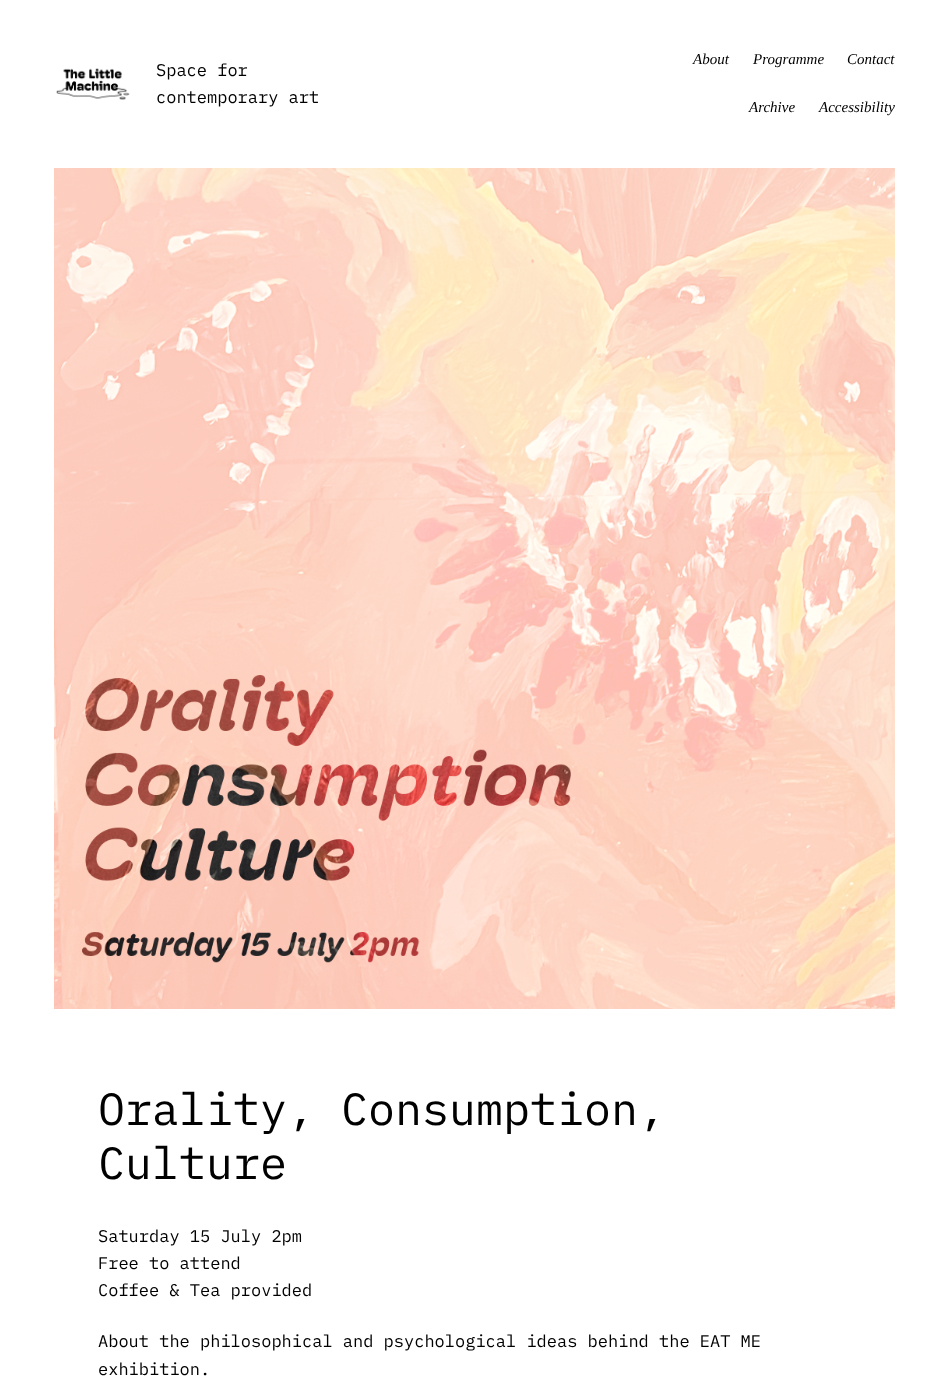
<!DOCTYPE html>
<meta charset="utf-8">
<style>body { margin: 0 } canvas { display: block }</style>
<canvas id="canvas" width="949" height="1388"></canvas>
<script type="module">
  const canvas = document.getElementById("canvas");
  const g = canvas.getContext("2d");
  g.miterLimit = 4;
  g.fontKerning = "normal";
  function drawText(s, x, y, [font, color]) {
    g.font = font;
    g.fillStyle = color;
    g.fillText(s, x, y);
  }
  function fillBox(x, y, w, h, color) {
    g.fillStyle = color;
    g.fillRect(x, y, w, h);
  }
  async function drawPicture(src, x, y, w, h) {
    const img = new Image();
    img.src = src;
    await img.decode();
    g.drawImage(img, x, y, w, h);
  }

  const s1 = ["17px IBM Plex Mono", "#000000"];
  const s2 = ["italic 15px Liberation Serif", "#000000"];
  const s3 = ["45px IBM Plex Mono", "#000000"];

  fillBox(0, 0, 949, 1388, "#FFFFFF");
  await drawPicture("pic1.png", 56, 68, 74, 32);
  drawText("Space for", 156, 76, s1);
  drawText("contemporary art", 156, 103, s1);
  drawText("About", 693, 64, s2);
  drawText("Programme", 753, 64, s2);
  drawText("Contact", 847, 64, s2);
  drawText("Archive", 749, 112, s2);
  drawText("Accessibility", 819, 112, s2);
  await drawPicture("pic2.png", 54, 168, 841, 841);
  drawText("Orality, Consumption,", 98, 1125, s3);
  drawText("Culture", 98, 1179, s3);
  drawText("Saturday 15 July 2pm", 98, 1242, s1);
  drawText("Free to attend", 98, 1269, s1);
  drawText("Coffee & Tea provided", 98, 1296, s1);
  drawText("About the philosophical and psychological ideas behind the EAT ME", 98, 1347, s1);
  drawText("exhibition.", 98, 1375, s1);
</script>
